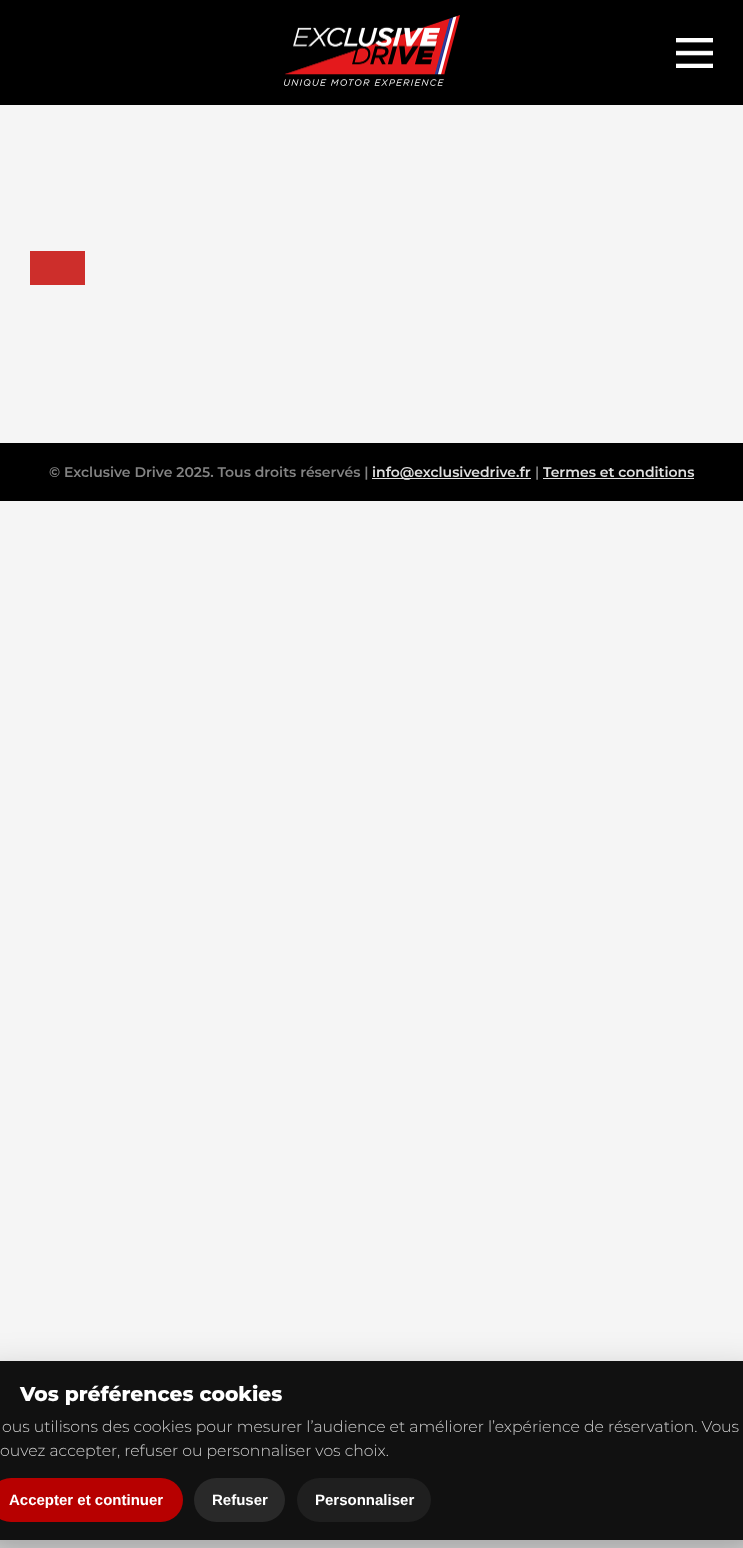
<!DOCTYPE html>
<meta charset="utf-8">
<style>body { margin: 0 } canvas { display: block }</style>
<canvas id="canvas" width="743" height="1548"></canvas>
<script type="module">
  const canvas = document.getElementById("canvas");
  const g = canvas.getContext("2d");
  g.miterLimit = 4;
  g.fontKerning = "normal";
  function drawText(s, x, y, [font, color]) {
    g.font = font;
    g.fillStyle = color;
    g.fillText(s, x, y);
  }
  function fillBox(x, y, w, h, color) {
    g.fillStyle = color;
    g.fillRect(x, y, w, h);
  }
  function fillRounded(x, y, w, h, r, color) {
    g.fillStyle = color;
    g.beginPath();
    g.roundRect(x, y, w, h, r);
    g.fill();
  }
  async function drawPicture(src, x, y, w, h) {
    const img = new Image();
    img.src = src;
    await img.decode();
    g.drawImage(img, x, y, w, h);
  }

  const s1 = ["600 14px Montserrat", "#838383"];
  const s2 = ["600 14px Montserrat", "#E0E0E0"];
  const s3 = ["800 20.2px Montserrat", "#FFFFFF"];
  const s4 = ["300 15.7px Montserrat", "#CFCFCF"];
  const s5 = ["bold 15px Liberation Sans", "#FFFFFF"];

  fillBox(0, 0, 743, 1548, "#F5F5F5");
  fillBox(0, 0, 743, 105, "#000000");
  await drawPicture("pic1.png", 284, 15, 176, 71);
  await drawPicture("pic2.png", 676, 38, 37, 30);
  fillBox(30, 251, 55, 34, "#CD2E2B");
  fillBox(0, 443, 743, 58, "#000000");
  drawText("© Exclusive Drive 2025. Tous droits réservés |", 49, 477, s1);
  fillBox(372, 478, 159, 1, "#E0E0E0");
  drawText("info@exclusivedrive.fr", 372, 477, s2);
  drawText("|", 535, 477, s1);
  drawText("Termes et conditions", 543, 477, s2);
  fillBox(543, 478, 151, 1, "#E0E0E0");
  g.fillStyle = "rgba(0, 0, 0, 0.35)";
  g.filter = "blur(22.5px)";
  g.beginPath();
  g.roundRect(-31, 1382, 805, 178, 20);
  g.fill();
  g.filter = "none";
  fillBox(0, 1361, 743, 179, "#111111");
  drawText("Vos préférences cookies", 20, 1401, s3);
  drawText("ous utilisons des cookies pour mesurer l’audience et améliorer l’expérience de réservation. Vous", 2, 1432, s4);
  drawText("ouvez accepter, refuser ou personnaliser vos choix.", 0, 1456, s4);
  fillRounded(-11, 1478, 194, 44, 22, "#B70000");
  drawText("Accepter et continuer", 9, 1505, s5);
  fillRounded(194, 1478, 91, 44, 22, "#292929");
  drawText("Refuser", 212, 1505, s5);
  fillRounded(297, 1478, 134, 44, 22, "#1F1F1F");
  drawText("Personnaliser", 315, 1505, s5);
</script>
